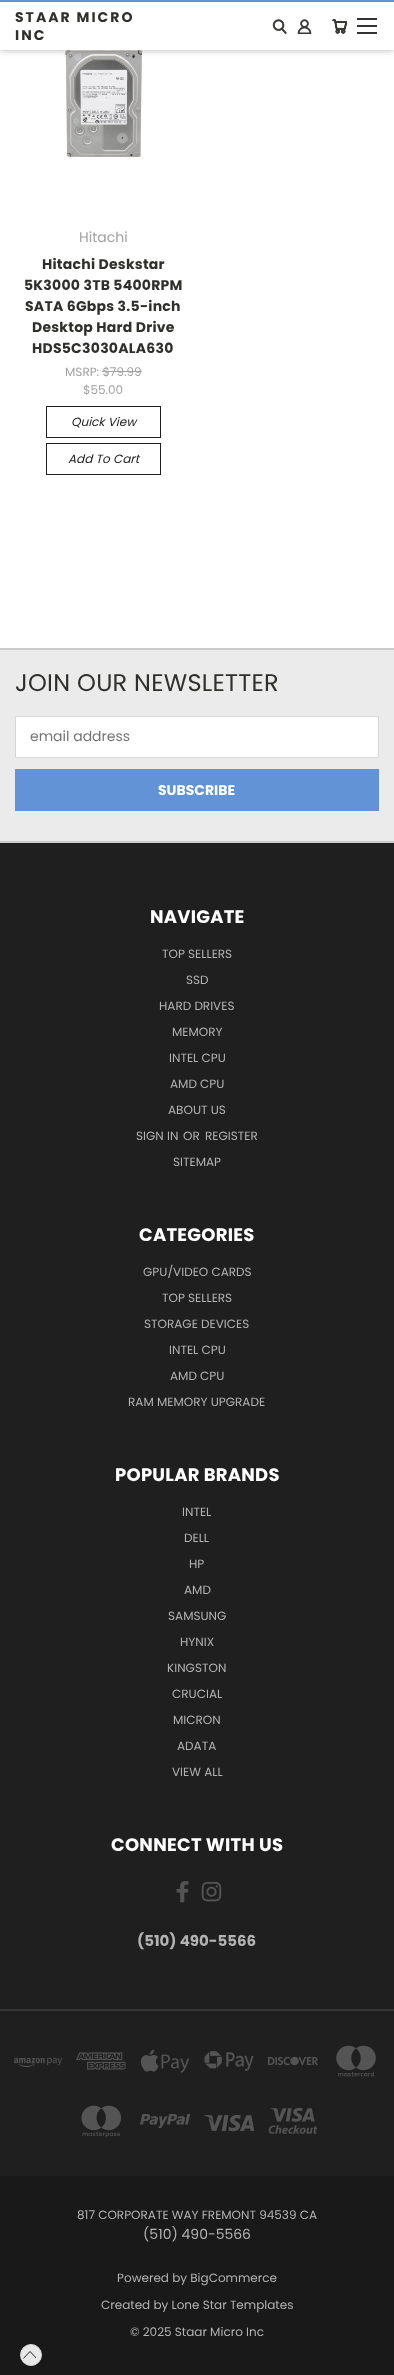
<!DOCTYPE html>
<meta charset="utf-8">
<style>body { margin: 0 } canvas { display: block }</style>
<canvas id="canvas" width="394" height="2375"></canvas>
<script type="module">
  const canvas = document.getElementById("canvas");
  const g = canvas.getContext("2d");
  g.miterLimit = 4;
  g.fontKerning = "normal";
  function drawText(s, x, y, [font, color]) {
    g.font = font;
    g.fillStyle = color;
    g.fillText(s, x, y);
  }
  function fillBox(x, y, w, h, color) {
    g.fillStyle = color;
    g.fillRect(x, y, w, h);
  }
  async function drawPicture(src, x, y, w, h) {
    const img = new Image();
    img.src = src;
    await img.decode();
    g.drawImage(img, x, y, w, h);
  }

  const s1 = ["bold 14px Poppins", "#2F2F2B"];
  const s2 = ["14px Poppins", "#A2A2A2"];
  const s3 = ["12px Poppins", "#A2A2A2"];
  const s4 = ["italic 12px Poppins", "#1F1F1F"];
  const s5 = ["24px Poppins", "#2F2F2B"];
  const s6 = ["14px Poppins", "#757575"];
  const s7 = ["bold 14px Poppins", "#FFFFFF"];
  const s8 = ["bold 18px Poppins", "#FFFFFF"];
  const s9 = ["12px Poppins", "#B2B2B2"];
  const s10 = ["bold 15px Poppins", "#B2B2B2"];
  const s11 = ["14px Poppins", "#B2B2B2"];

  fillBox(0, 0, 394, 2375, "#FFFFFF");
  await drawPicture("pic4.png", 62, 50, 82, 108);
  g.fillStyle = "rgba(0, 0, 0, 0.3)";
  g.filter = "blur(3.5px)";
  g.beginPath();
  g.rect(0, 0, 394, 50);
  g.fill();
  g.filter = "none";
  fillBox(0, 2, 394, 48, "#FFFFFF");
  fillBox(0, 0, 394, 2, "#6293D6");
  g.letterSpacing = "2px";
  drawText("STAAR MICRO", 15, 22, s1);
  drawText("INC", 15, 40, s1);
  await drawPicture("pic1.png", 272, 19, 15, 15);
  await drawPicture("pic2.png", 297, 19, 15, 15);
  await drawPicture("pic3.png", 332, 19, 15, 15);
  fillBox(357, 25, 20, 2, "#333333");
  fillBox(357, 18, 20, 2, "#333333");
  fillBox(357, 32, 20, 2, "#333333");
  g.letterSpacing = "0px";
  drawText("Hitachi", 79, 242, s2);
  g.letterSpacing = "0.25px";
  drawText("Hitachi Deskstar", 42, 269, s1);
  drawText("5K3000 3TB 5400RPM", 24, 290, s1);
  drawText("SATA 6Gbps 3.5-inch", 25, 311, s1);
  drawText("Desktop Hard Drive", 32, 332, s1);
  drawText("HDS5C3030ALA630", 32, 353, s1);
  g.letterSpacing = "0px";
  drawText("MSRP: $79.99", 65, 376, s3);
  fillBox(102, 371, 40, 1, "#A2A2A2");
  drawText("$55.00", 83, 394, s3);
  g.strokeStyle = "#1F1F1F";
  g.strokeRect(46.5, 406.5, 114, 31);
  drawText("Quick View", 71, 426, s4);
  g.strokeRect(46.5, 443.5, 114, 31);
  drawText("Add To Cart", 68, 463, s4);
  fillBox(0, 650, 394, 191, "#EBEBEB");
  fillBox(0, 648, 394, 2, "#CDCCCC");
  g.letterSpacing = "0.25px";
  drawText("JOIN OUR NEWSLETTER", 15, 691, s5);
  g.fillStyle = "#FFFFFF";
  g.beginPath();
  g.rect(15.5, 716.5, 363, 41);
  g.fill();
  g.strokeStyle = "#D7D7D7";
  g.stroke();
  g.letterSpacing = "0px";
  drawText("email address", 30, 741, s6);
  fillBox(15, 769, 364, 42, "#6293D6");
  drawText("SUBSCRIBE", 158, 795, s7);
  fillBox(0, 843, 394, 1333, "#1F1F1F");
  fillBox(0, 841, 394, 2, "#CDCCCC");
  g.letterSpacing = "0.25px";
  drawText("NAVIGATE", 150, 923, s8);
  g.letterSpacing = "0px";
  drawText("TOP SELLERS", 162, 958, s9);
  drawText("SSD", 186, 984, s9);
  drawText("HARD DRIVES", 159, 1010, s9);
  drawText("MEMORY", 172, 1036, s9);
  drawText("INTEL CPU", 169, 1062, s9);
  drawText("AMD CPU", 170, 1088, s9);
  drawText("ABOUT US", 168, 1114, s9);
  drawText("SIGN IN", 136, 1140, s9);
  drawText("OR", 183, 1140, s9);
  drawText("REGISTER", 205, 1140, s9);
  drawText("SITEMAP", 173, 1166, s9);
  g.letterSpacing = "0.25px";
  drawText("CATEGORIES", 139, 1241, s8);
  g.letterSpacing = "0px";
  drawText("GPU/VIDEO CARDS", 143, 1276, s9);
  drawText("TOP SELLERS", 162, 1302, s9);
  drawText("STORAGE DEVICES", 144, 1328, s9);
  drawText("INTEL CPU", 169, 1354, s9);
  drawText("AMD CPU", 170, 1380, s9);
  drawText("RAM MEMORY UPGRADE", 128, 1406, s9);
  g.letterSpacing = "0.25px";
  drawText("POPULAR BRANDS", 115, 1481, s8);
  g.letterSpacing = "0px";
  drawText("INTEL", 182, 1516, s9);
  drawText("DELL", 184, 1542, s9);
  drawText("HP", 189, 1568, s9);
  drawText("AMD", 184, 1594, s9);
  drawText("SAMSUNG", 168, 1620, s9);
  drawText("HYNIX", 180, 1646, s9);
  drawText("KINGSTON", 167, 1672, s9);
  drawText("CRUCIAL", 172, 1698, s9);
  drawText("MICRON", 173, 1724, s9);
  drawText("ADATA", 177, 1750, s9);
  drawText("VIEW ALL", 172, 1776, s9);
  g.letterSpacing = "0.25px";
  drawText("CONNECT WITH US", 111, 1851, s8);
  await drawPicture("pic5.png", 176, 1881, 13, 22);
  await drawPicture("pic6.png", 201, 1881, 21, 21);
  g.letterSpacing = "0px";
  drawText("(510) 490-5566", 137, 1946, s10);
  fillBox(0, 2009, 394, 2, "#363636");
  await drawPicture("pic7.png", 14, 2057, 49, 11);
  await drawPicture("pic8.png", 76, 2052, 50, 18);
  await drawPicture("pic9.png", 141, 2049, 49, 24);
  await drawPicture("pic10.png", 204, 2051, 50, 20);
  await drawPicture("pic11.png", 268, 2056, 50, 10);
  await drawPicture("pic12.png", 336, 2045, 40, 32);
  await drawPicture("pic13.png", 81, 2105, 40, 33);
  await drawPicture("pic14.png", 140, 2114, 50, 14);
  await drawPicture("pic15.png", 204, 2114, 50, 18);
  await drawPicture("pic16.png", 268, 2107, 50, 27);
  fillBox(0, 2176, 394, 199, "#191919");
  drawText("817 CORPORATE WAY FREMONT 94539 CA", 77, 2219, s9);
  drawText("(510) 490-5566", 143, 2239, s11);
  drawText("Powered by BigCommerce", 117, 2282, s9);
  drawText("Created by Lone Star Templates", 101, 2309, s9);
  drawText("© 2025 Staar Micro Inc", 130, 2336, s9);
  g.fillStyle = "#E8E8E8";
  g.beginPath();
  g.arc(31, 2355, 10.5, 0, Math.PI * 2);
  g.fill();
  g.stroke();
  g.save();
  g.beginPath();
  g.moveTo(36, 2350);
  g.lineTo(36, 2362.5);
  g.lineTo(23.5, 2362.5);
  g.lineTo(23.5, 2350);
  g.closePath();
  g.clip();
  g.beginPath();
  g.moveTo(40.5, 2362.5);
  g.lineTo(30, 2351.5);
  g.lineTo(19.5, 2362.5);
  g.strokeStyle = "#1F1F1F";
  g.lineCap = "round";
  g.lineJoin = "round";
  g.stroke();
  g.restore();
</script>
